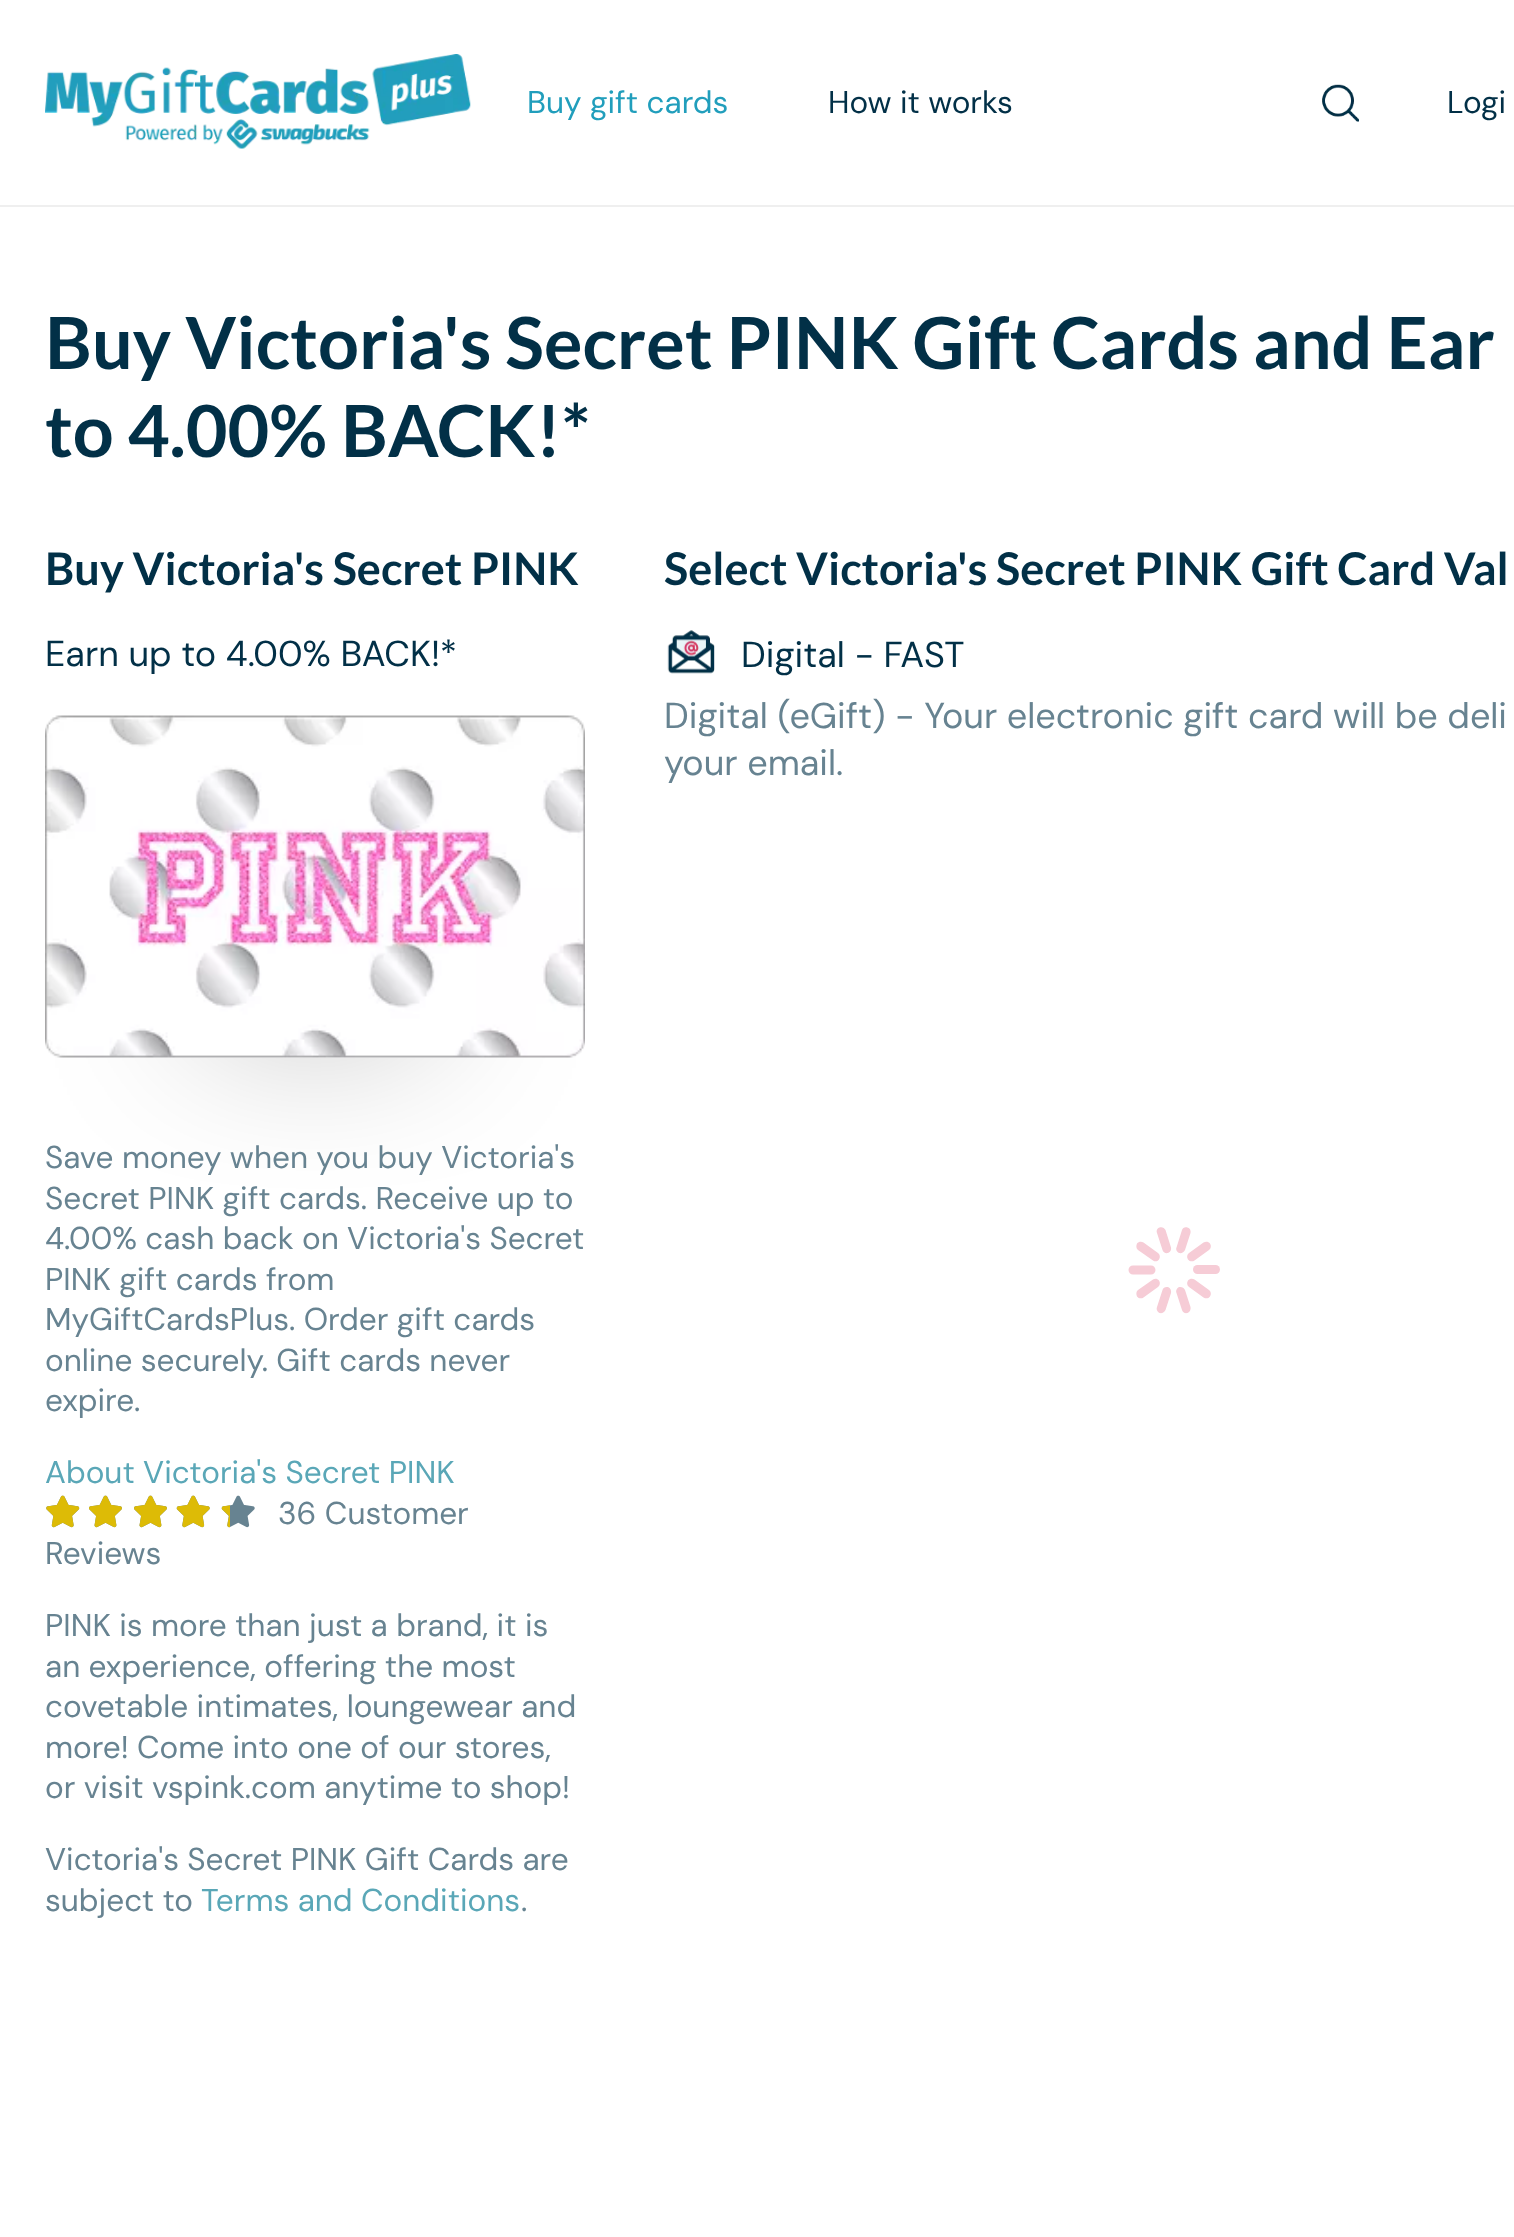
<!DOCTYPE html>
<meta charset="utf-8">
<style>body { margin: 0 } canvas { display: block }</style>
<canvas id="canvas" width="1514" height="2237"></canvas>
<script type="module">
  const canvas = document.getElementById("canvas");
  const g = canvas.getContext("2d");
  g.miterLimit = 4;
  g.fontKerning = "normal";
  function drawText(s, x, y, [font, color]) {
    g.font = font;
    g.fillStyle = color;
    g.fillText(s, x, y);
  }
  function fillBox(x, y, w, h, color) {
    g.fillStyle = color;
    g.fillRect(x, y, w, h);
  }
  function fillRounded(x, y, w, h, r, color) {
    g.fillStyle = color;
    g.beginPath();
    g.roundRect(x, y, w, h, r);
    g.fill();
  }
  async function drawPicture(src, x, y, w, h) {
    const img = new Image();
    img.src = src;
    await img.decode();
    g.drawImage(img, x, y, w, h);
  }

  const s1 = ["31.5px DM Sans", "#219EBC"];
  const s2 = ["31.5px DM Sans", "#023047"];
  const s3 = ["bold 72px Lato", "#023047"];
  const s4 = ["bold 45px Lato", "#023047"];
  const s5 = ["36px DM Sans", "#023047"];
  const s6 = ["31.5px DM Sans", "#678391"];
  const s7 = ["31.5px DM Sans", "#5AA7B7"];
  const s8 = ["36px DM Sans", "#678391"];

  fillBox(0, 0, 1514, 2237, "#FFFFFF");
  fillBox(0, 205, 1514, 2, "#EFEFEF");
  await drawPicture("pic1.png", 45, 54, 426, 95);
  drawText("Buy gift cards", 527, 113, s1);
  drawText("How it works", 828, 113, s2);
  await drawPicture("pic2.png", 1322, 84, 37, 38);
  drawText("Logi", 1447, 113, s2);
  drawText("Buy Victoria's Secret PINK Gift Cards and Ear", 45, 369, s3);
  drawText("to 4.00% BACK!*", 45, 457, s3);
  drawText("Buy Victoria's Secret PINK", 45, 585, s4);
  drawText("Earn up to 4.00% BACK!*", 45, 666, s5);
  g.fillStyle = "#000000";
  g.filter = "blur(79px)";
  g.beginPath();
  g.rect(203, 974, 225, 27);
  g.fill();
  g.filter = "none";
  fillBox(89, 812, 453, 246, "#FFFFFF");
  await drawPicture("pic3.png", 45, 715, 540, 343);
  drawText("Save money when you buy Victoria's", 45, 1168, s6);
  drawText("Secret PINK gift cards. Receive up to", 45, 1209, s6);
  drawText("4.00% cash back on Victoria's Secret", 45, 1249, s6);
  drawText("PINK gift cards from", 45, 1290, s6);
  drawText("MyGiftCardsPlus. Order gift cards", 45, 1330, s6);
  drawText("online securely. Gift cards never", 45, 1371, s6);
  drawText("expire.", 45, 1411, s6);
  drawText("About Victoria's Secret PINK", 45, 1483, s7);
  await drawPicture("pic4.png", 46, 1495, 34, 33);
  await drawPicture("pic5.png", 46, 1495, 34, 33);
  await drawPicture("pic9.png", 89, 1495, 33, 33);
  await drawPicture("pic6.png", 89, 1495, 33, 33);
  await drawPicture("pic9.png", 134, 1495, 33, 33);
  await drawPicture("pic6.png", 134, 1495, 33, 33);
  await drawPicture("pic10.png", 176, 1495, 34, 33);
  await drawPicture("pic7.png", 176, 1495, 34, 33);
  await drawPicture("pic10.png", 221, 1495, 34, 33);
  await drawPicture("pic8.png", 221, 1505, 9, 23);
  drawText("36 Customer", 278, 1524, s6);
  drawText("Reviews", 45, 1564, s6);
  drawText("PINK is more than just a brand, it is", 45, 1636, s6);
  drawText("an experience, offering the most", 45, 1677, s6);
  drawText("covetable intimates, loungewear and", 45, 1717, s6);
  drawText("more! Come into one of our stores,", 45, 1758, s6);
  drawText("or visit vspink.com anytime to shop!", 45, 1798, s6);
  drawText("Victoria's Secret PINK Gift Cards are", 45, 1870, s6);
  drawText("subject to", 45, 1911, s6);
  drawText("Terms and Conditions", 201, 1911, s7);
  drawText(".", 521, 1911, s6);
  drawText("Select Victoria's Secret PINK Gift Card Val", 664, 585, s4);
  await drawPicture("pic11.png", 667, 630, 48, 44);
  drawText("Digital - FAST", 741, 667, s5);
  drawText("Digital (eGift) - Your electronic gift card will be deli", 664, 728, s8);
  drawText("your email.", 664, 775, s8);
  g.fillStyle = "#F6CCD6";
  g.beginPath();
  g.moveTo(1194.5, 1279.5);
  g.lineTo(1209, 1290);
  g.bezierCurveTo(1211, 1291.5, 1211.5, 1294.5, 1210, 1296.5);
  g.bezierCurveTo(1208.5, 1298.5, 1206, 1299, 1203.5, 1297.5);
  g.lineTo(1189, 1287);
  g.bezierCurveTo(1187, 1285.5, 1186.5, 1282.5, 1188, 1280.5);
  g.bezierCurveTo(1189.5, 1278.5, 1192.5, 1278, 1194.5, 1279.5);
  g.closePath();
  g.fill();
  g.beginPath();
  g.moveTo(1185, 1290);
  g.lineTo(1190.5, 1307);
  g.bezierCurveTo(1191, 1309.5, 1190, 1312, 1187.5, 1313);
  g.bezierCurveTo(1185, 1313.5, 1182.5, 1312.5, 1182, 1310);
  g.lineTo(1176.5, 1293);
  g.bezierCurveTo(1175.5, 1290.5, 1177, 1288, 1179, 1287);
  g.bezierCurveTo(1181.5, 1286.5, 1184, 1287.5, 1185, 1290);
  g.closePath();
  g.moveTo(1171, 1293);
  g.lineTo(1165.5, 1310);
  g.bezierCurveTo(1164.5, 1312.5, 1162, 1313.5, 1159.5, 1313);
  g.bezierCurveTo(1157.5, 1312, 1156, 1309.5, 1157, 1307);
  g.lineTo(1162.5, 1290);
  g.bezierCurveTo(1163, 1287.5, 1165.5, 1286.5, 1168, 1287);
  g.bezierCurveTo(1170.5, 1288, 1171.5, 1290.5, 1171, 1293);
  g.closePath();
  g.fill();
  g.beginPath();
  g.moveTo(1158, 1287);
  g.lineTo(1143.5, 1297.5);
  g.bezierCurveTo(1141.5, 1299, 1138.5, 1298.5, 1137, 1296.5);
  g.bezierCurveTo(1136, 1294.5, 1136, 1291.5, 1138, 1290);
  g.lineTo(1153, 1279.5);
  g.bezierCurveTo(1155, 1278, 1157.5, 1278.5, 1159, 1280.5);
  g.bezierCurveTo(1160.5, 1282.5, 1160, 1285.5, 1158, 1287);
  g.closePath();
  g.moveTo(1151, 1274.5);
  g.lineTo(1133, 1274.5);
  g.bezierCurveTo(1130.5, 1274.5, 1128.5, 1272.5, 1128.5, 1270);
  g.bezierCurveTo(1128.5, 1267.5, 1130.5, 1265.5, 1133, 1265.5);
  g.lineTo(1151, 1265.5);
  g.bezierCurveTo(1153.5, 1265.5, 1155.5, 1267.5, 1155.5, 1270);
  g.bezierCurveTo(1155.5, 1272.5, 1153.5, 1274.5, 1151, 1274.5);
  g.closePath();
  g.moveTo(1153, 1260.5);
  g.lineTo(1138, 1250);
  g.bezierCurveTo(1136, 1248.5, 1136, 1245.5, 1137, 1243.5);
  g.bezierCurveTo(1138.5, 1241.5, 1141.5, 1241, 1143.5, 1242.5);
  g.lineTo(1158, 1253);
  g.bezierCurveTo(1160, 1254.5, 1160.5, 1257.5, 1159, 1259.5);
  g.bezierCurveTo(1157.5, 1261.5, 1155, 1262, 1153, 1260.5);
  g.closePath();
  g.fill();
  g.beginPath();
  g.moveTo(1162.5, 1250);
  g.lineTo(1157, 1233);
  g.bezierCurveTo(1156, 1230.5, 1157.5, 1228, 1159.5, 1227.5);
  g.bezierCurveTo(1162, 1226.5, 1164.5, 1228, 1165.5, 1230);
  g.lineTo(1171, 1247.5);
  g.bezierCurveTo(1171.5, 1249.5, 1170.5, 1252, 1168, 1253);
  g.bezierCurveTo(1165.5, 1253.5, 1163, 1252.5, 1162.5, 1250);
  g.closePath();
  g.moveTo(1176.5, 1247.5);
  g.lineTo(1182, 1230);
  g.bezierCurveTo(1182.5, 1228, 1185, 1226.5, 1187.5, 1227.5);
  g.bezierCurveTo(1190, 1228, 1191, 1230.5, 1190.5, 1233);
  g.lineTo(1185, 1250);
  g.bezierCurveTo(1184, 1252.5, 1181.5, 1253.5, 1179, 1253);
  g.bezierCurveTo(1177, 1252, 1175.5, 1249.5, 1176.5, 1247.5);
  g.closePath();
  g.fill();
  g.beginPath();
  g.moveTo(1189, 1253);
  g.lineTo(1203.5, 1242.5);
  g.bezierCurveTo(1206, 1241, 1208.5, 1241.5, 1210, 1243.5);
  g.bezierCurveTo(1211.5, 1245.5, 1211, 1248.5, 1209, 1250);
  g.lineTo(1194.5, 1260.5);
  g.bezierCurveTo(1192.5, 1262, 1189.5, 1261.5, 1188, 1259.5);
  g.bezierCurveTo(1186.5, 1257.5, 1187, 1254.5, 1189, 1253);
  g.closePath();
  g.fill();
  fillRounded(1193, 1265, 27, 9, 4.5, "#F6CCD6");
</script>
